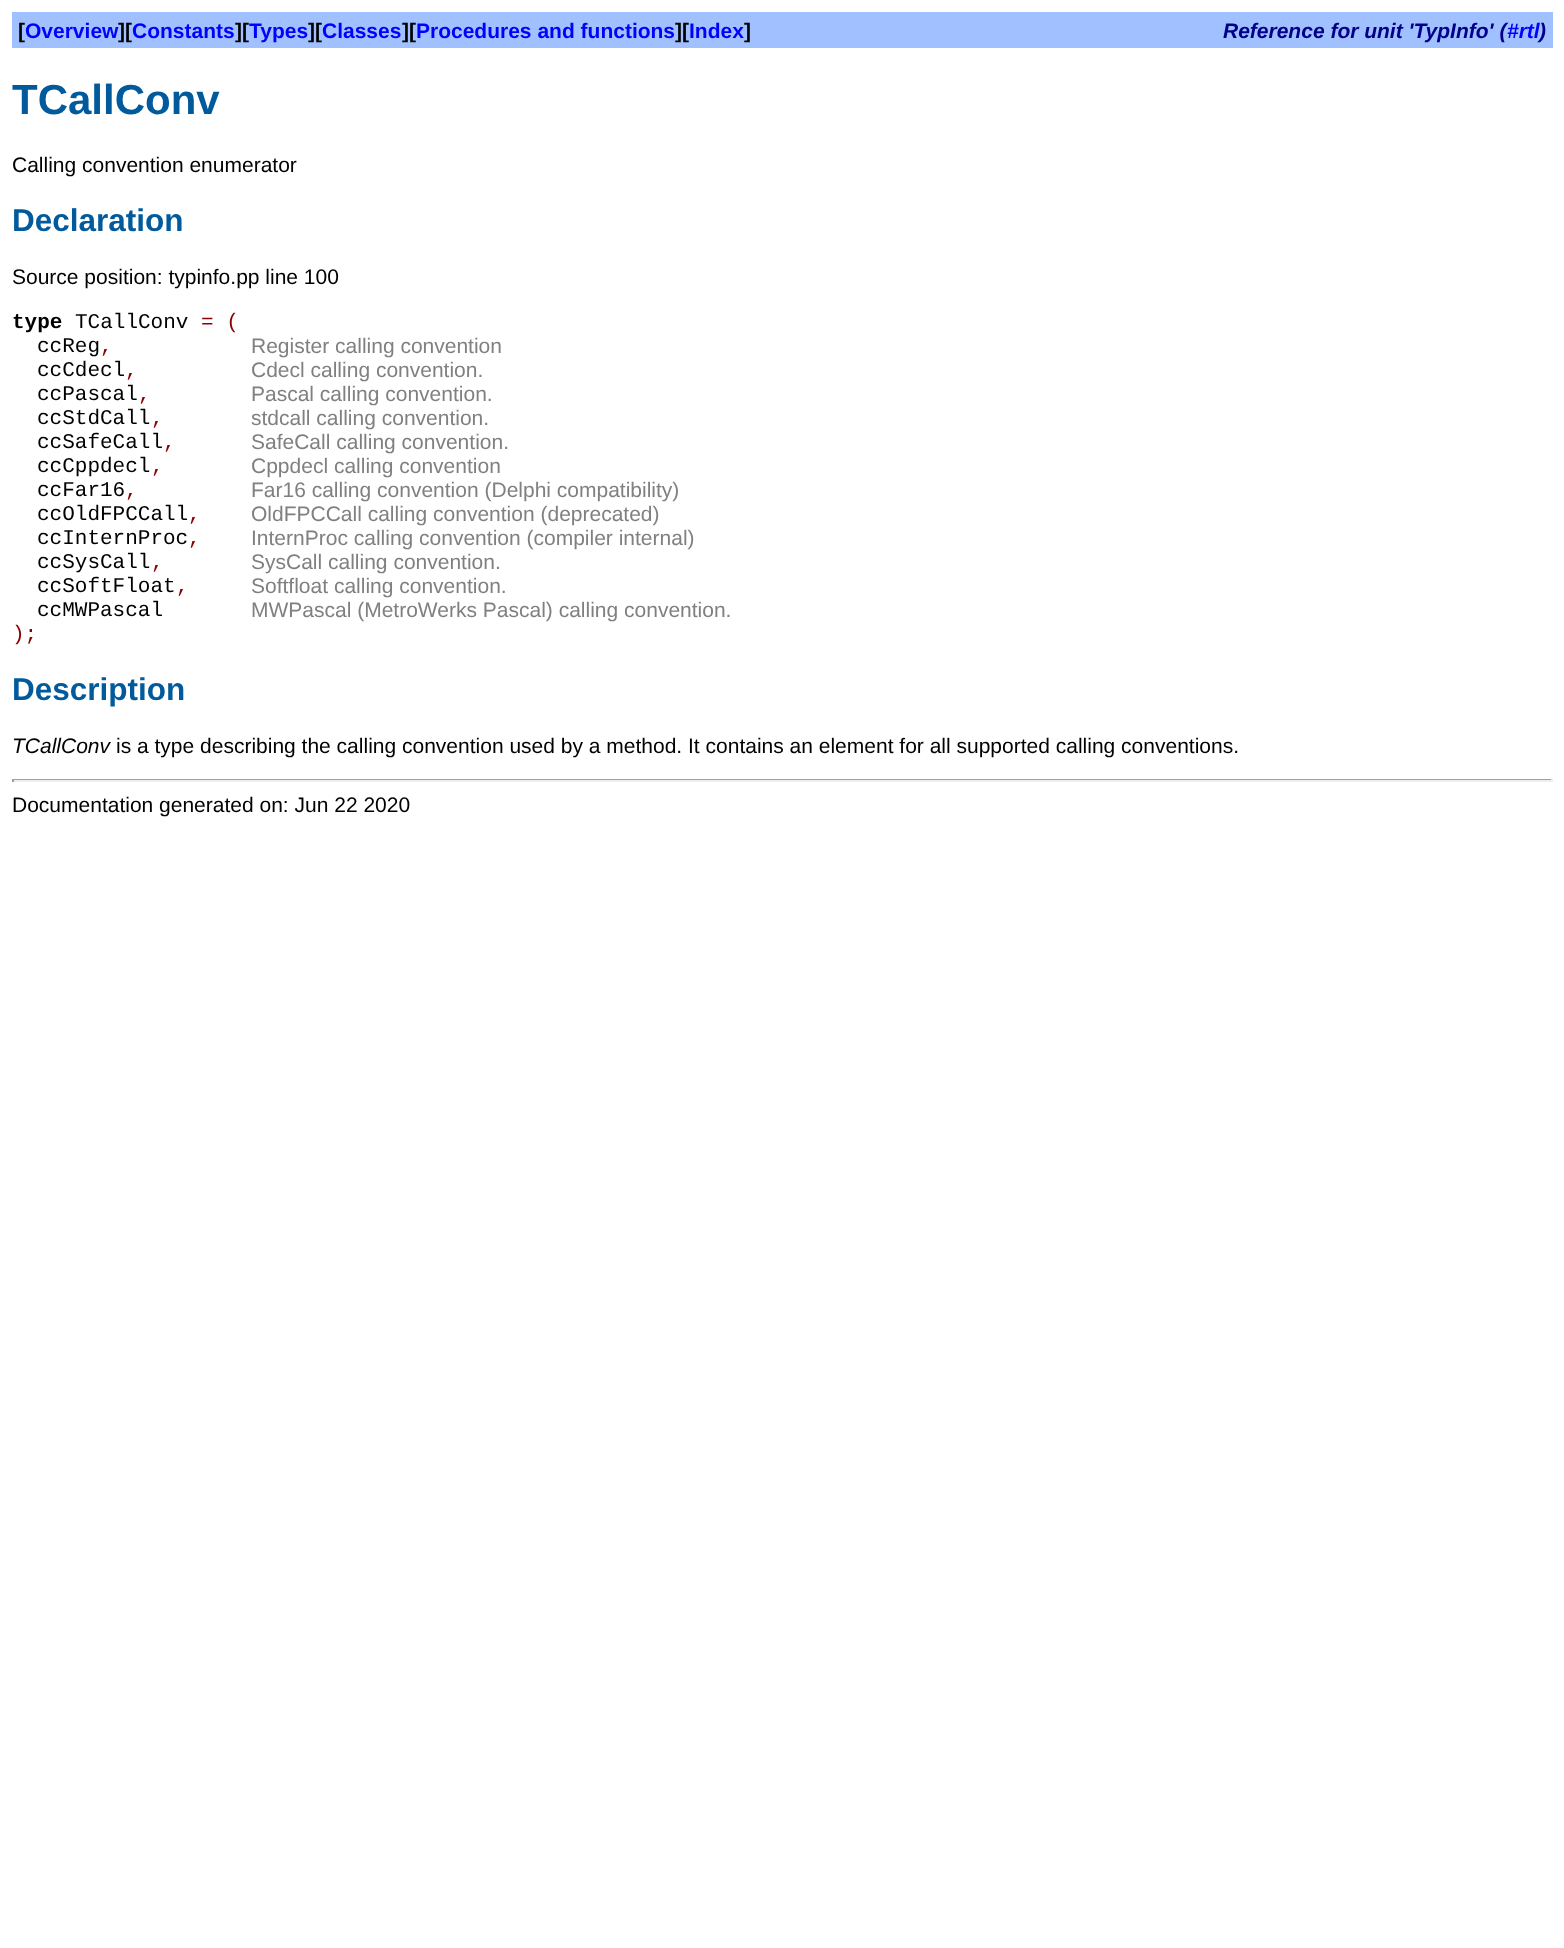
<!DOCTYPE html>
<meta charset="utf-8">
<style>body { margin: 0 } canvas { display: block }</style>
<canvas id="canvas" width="1564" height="1948"></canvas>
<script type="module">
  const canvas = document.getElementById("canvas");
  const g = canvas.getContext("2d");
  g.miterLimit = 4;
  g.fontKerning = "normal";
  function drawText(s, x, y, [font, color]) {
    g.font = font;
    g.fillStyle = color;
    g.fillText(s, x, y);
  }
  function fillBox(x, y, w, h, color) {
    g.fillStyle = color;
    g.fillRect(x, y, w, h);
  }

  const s1 = ["bold 21px Liberation Sans", "#000000"];
  const s2 = ["bold 21px Liberation Sans", "#0000FF"];
  const s3 = ["italic bold 21px Liberation Sans", "#00008B"];
  const s4 = ["italic bold 21px Liberation Sans", "#0000FF"];
  const s5 = ["bold 42px Liberation Sans", "#005A9C"];
  const s6 = ["21px Liberation Sans", "#000000"];
  const s7 = ["bold 31.5px Liberation Sans", "#005A9C"];
  const s8 = ["bold 21px Liberation Mono", "#000000"];
  const s9 = ["21px Liberation Mono", "#000000"];
  const s10 = ["21px Liberation Mono", "#8B0000"];
  const s11 = ["21px Liberation Sans", "#808080"];
  const s12 = ["italic 21px Liberation Sans", "#000000"];

  fillBox(0, 0, 1564, 1948, "#FFFFFF");
  fillBox(12, 12, 1541, 36, "#A0C0FF");
  drawText("[", 18, 38, s1);
  drawText("Overview", 25, 38, s2);
  drawText("][", 118, 38, s1);
  drawText("Constants", 132, 38, s2);
  drawText("][", 235, 38, s1);
  drawText("Types", 249, 38, s2);
  drawText("][", 308, 38, s1);
  drawText("Classes", 322, 38, s2);
  drawText("][", 402, 38, s1);
  drawText("Procedures and functions", 416, 38, s2);
  drawText("][", 675, 38, s1);
  drawText("Index", 689, 38, s2);
  drawText("]", 744, 38, s1);
  drawText("Reference for unit 'TypInfo' (", 1223, 38, s3);
  drawText("#rtl", 1507, 38, s4);
  drawText(")", 1539, 38, s3);
  drawText("TCallConv", 12, 114, s5);
  drawText("Calling convention enumerator", 12, 172, s6);
  drawText("Declaration", 12, 231, s7);
  drawText("Source position: typinfo.pp line 100", 12, 284, s6);
  drawText("type", 12, 328, s8);
  drawText("TCallConv", 75, 328, s9);
  drawText("= (", 201, 328, s10);
  drawText("ccReg", 37, 352, s9);
  drawText(",", 100, 352, s10);
  drawText("Register calling convention", 251, 353, s11);
  drawText("ccCdecl", 37, 376, s9);
  drawText(",", 125, 376, s10);
  drawText("Cdecl calling convention.", 251, 377, s11);
  drawText("ccPascal", 37, 400, s9);
  drawText(",", 138, 400, s10);
  drawText("Pascal calling convention.", 251, 401, s11);
  drawText("ccStdCall", 37, 424, s9);
  drawText(",", 151, 424, s10);
  drawText("stdcall calling convention.", 251, 425, s11);
  drawText("ccSafeCall", 37, 448, s9);
  drawText(",", 163, 448, s10);
  drawText("SafeCall calling convention.", 251, 449, s11);
  drawText("ccCppdecl", 37, 472, s9);
  drawText(",", 151, 472, s10);
  drawText("Cppdecl calling convention", 251, 473, s11);
  drawText("ccFar16", 37, 496, s9);
  drawText(",", 125, 496, s10);
  drawText("Far16 calling convention (Delphi compatibility)", 251, 497, s11);
  drawText("ccOldFPCCall", 37, 520, s9);
  drawText(",", 188, 520, s10);
  drawText("OldFPCCall calling convention (deprecated)", 251, 521, s11);
  drawText("ccInternProc", 37, 544, s9);
  drawText(",", 188, 544, s10);
  drawText("InternProc calling convention (compiler internal)", 251, 545, s11);
  drawText("ccSysCall", 37, 568, s9);
  drawText(",", 151, 568, s10);
  drawText("SysCall calling convention.", 251, 569, s11);
  drawText("ccSoftFloat", 37, 592, s9);
  drawText(",", 176, 592, s10);
  drawText("Softfloat calling convention.", 251, 593, s11);
  drawText("ccMWPascal", 37, 616, s9);
  drawText("MWPascal (MetroWerks Pascal) calling convention.", 251, 617, s11);
  drawText(");", 12, 640, s10);
  drawText("Description", 12, 700, s7);
  drawText("TCallConv", 12, 753, s12);
  drawText("is a type describing the calling convention used by a method. It contains an element for all supported calling conventions.", 116, 753, s6);
  fillBox(12, 779, 1541, 1, "#9F9F9F");
  fillBox(1551, 779, 2, 3, "#EEEEEE");
  fillBox(12, 780, 1541, 2, "#EEEEEE");
  fillBox(12, 779, 2, 3, "#9F9F9F");
  drawText("Documentation generated on: Jun 22 2020", 12, 812, s6);
</script>
